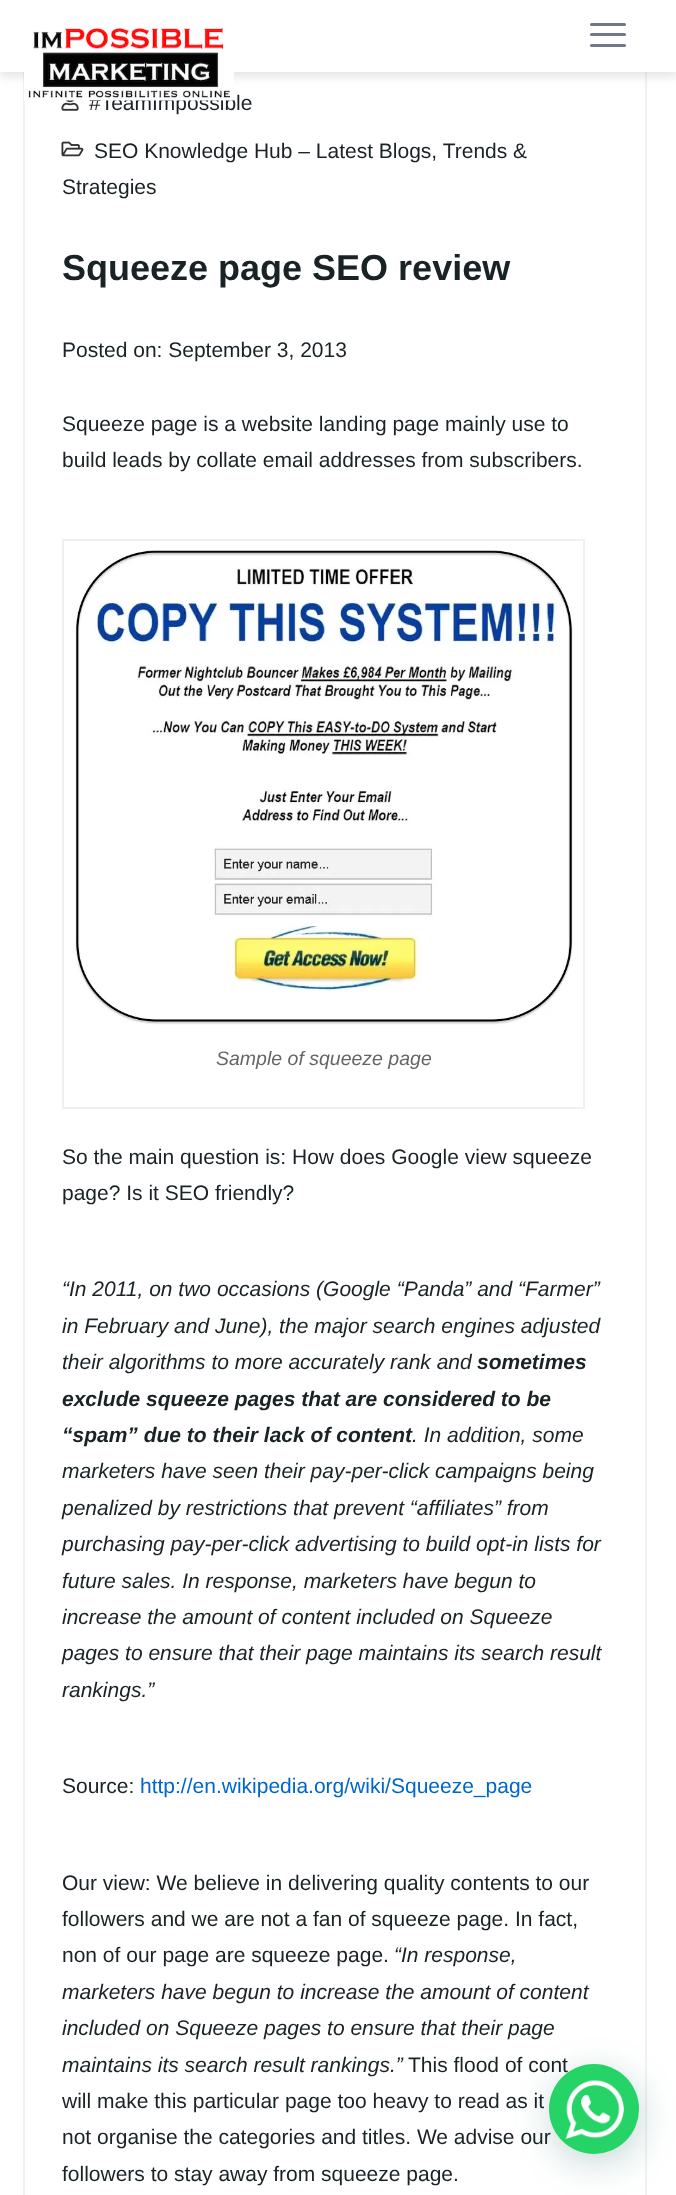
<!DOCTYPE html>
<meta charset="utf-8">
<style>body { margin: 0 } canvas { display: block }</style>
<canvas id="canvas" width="676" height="2195"></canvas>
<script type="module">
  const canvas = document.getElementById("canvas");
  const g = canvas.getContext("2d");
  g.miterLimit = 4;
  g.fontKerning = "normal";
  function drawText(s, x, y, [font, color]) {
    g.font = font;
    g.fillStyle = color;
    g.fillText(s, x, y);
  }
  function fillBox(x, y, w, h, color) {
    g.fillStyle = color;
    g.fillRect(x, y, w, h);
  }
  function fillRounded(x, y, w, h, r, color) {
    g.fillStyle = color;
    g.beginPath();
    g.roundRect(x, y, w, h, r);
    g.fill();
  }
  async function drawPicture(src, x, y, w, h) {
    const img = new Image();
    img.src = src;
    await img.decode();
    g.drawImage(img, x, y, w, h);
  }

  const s1 = ["21px Liberation Sans", "#192225"];
  const s2 = ["bold 36px Liberation Sans", "#192225"];
  const s3 = ["italic 19.5px Liberation Sans", "#666666"];
  const s4 = ["italic 21px Liberation Sans", "#192225"];
  const s5 = ["italic bold 21px Liberation Sans", "#192225"];
  const s6 = ["21px Liberation Sans", "#0066CC"];

  fillBox(0, 0, 676, 2195, "#FFFFFF");
  g.strokeStyle = "#F1F1F1";
  g.lineWidth = 2;
  g.strokeRect(24, 46, 622, 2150);
  g.fillStyle = "rgba(0, 0, 0, 0.1)";
  g.filter = "blur(5px)";
  g.beginPath();
  g.rect(0, 5, 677, 72);
  g.fill();
  g.filter = "none";
  fillBox(0, 0, 676, 72, "#FFFFFF");
  await drawPicture("pic2.png", 61, 100, 18, 11);
  drawText("#TeamImpossible", 89, 110, s1);
  await drawPicture("pic1.png", 24, 27, 210, 74);
  fillRounded(590, 44, 36, 3, 1.5, "#70798B");
  fillRounded(590, 33, 36, 3, 1.5, "#70798B");
  fillRounded(590, 23, 36, 3, 1.5, "#70798B");
  await drawPicture("pic3.png", 61, 141, 23, 16);
  drawText("SEO Knowledge Hub – Latest Blogs, Trends &", 94, 158, s1);
  drawText("Strategies", 62, 194, s1);
  drawText("Squeeze page SEO review", 62, 280, s2);
  drawText("Posted on: September 3, 2013", 62, 357, s1);
  drawText("Squeeze page is a website landing page mainly use to", 62, 431, s1);
  drawText("build leads by collate email addresses from subscribers.", 62, 467, s1);
  g.strokeStyle = "#F0F0F0";
  g.strokeRect(63, 540, 521, 568);
  await drawPicture("pic4.png", 75, 550, 498, 475);
  drawText("Sample of squeeze page", 216, 1065, s3);
  drawText("So the main question is: How does Google view squeeze", 62, 1164, s1);
  drawText("page? Is it SEO friendly?", 62, 1200, s1);
  drawText("“In 2011, on two occasions (Google “Panda” and “Farmer”", 62, 1296, s4);
  drawText("in February and June), the major search engines adjusted", 62, 1333, s4);
  drawText("their algorithms to more accurately rank and", 62, 1369, s4);
  drawText("sometimes", 477, 1369, s5);
  drawText("exclude squeeze pages that are considered to be", 62, 1406, s5);
  drawText("“spam” due to their lack of content", 62, 1442, s5);
  drawText(". In addition, some", 412, 1442, s4);
  drawText("marketers have seen their pay-per-click campaigns being", 62, 1478, s4);
  drawText("penalized by restrictions that prevent “affiliates” from", 62, 1515, s4);
  drawText("purchasing pay-per-click advertising to build opt-in lists for", 62, 1551, s4);
  drawText("future sales. In response, marketers have begun to", 62, 1588, s4);
  drawText("increase the amount of content included on Squeeze", 62, 1624, s4);
  drawText("pages to ensure that their page maintains its search result", 62, 1660, s4);
  drawText("rankings.”", 62, 1697, s4);
  drawText("Source:", 62, 1793, s1);
  drawText("http://en.wikipedia.org/wiki/Squeeze_page", 140, 1793, s6);
  drawText("Our view: We believe in delivering quality contents to our", 62, 1890, s1);
  drawText("followers and we are not a fan of squeeze page. In fact,", 62, 1926, s1);
  drawText("non of our page are squeeze page.", 62, 1962, s1);
  drawText("“In response,", 394, 1962, s4);
  drawText("marketers have begun to increase the amount of content", 62, 1999, s4);
  drawText("included on Squeeze pages to ensure that their page", 62, 2035, s4);
  drawText("maintains its search result rankings.”", 62, 2072, s4);
  drawText("This flood of cont", 408, 2072, s1);
  drawText("will make this particular page too heavy to read as it", 62, 2108, s1);
  drawText("not organise the categories and titles. We advise our", 62, 2144, s1);
  drawText("followers to stay away from squeeze page.", 62, 2181, s1);
  g.fillStyle = "rgba(7, 94, 84, 0.24)";
  g.filter = "blur(18px)";
  g.beginPath();
  g.roundRect(551, 2073, 90, 90, 45);
  g.fill();
  g.filter = "none";
  g.fillStyle = "#25D366";
  g.beginPath();
  g.arc(594, 2109, 45, 0, Math.PI * 2);
  g.fill();
  await drawPicture("pic5.png", 565, 2080, 59, 59);
</script>
